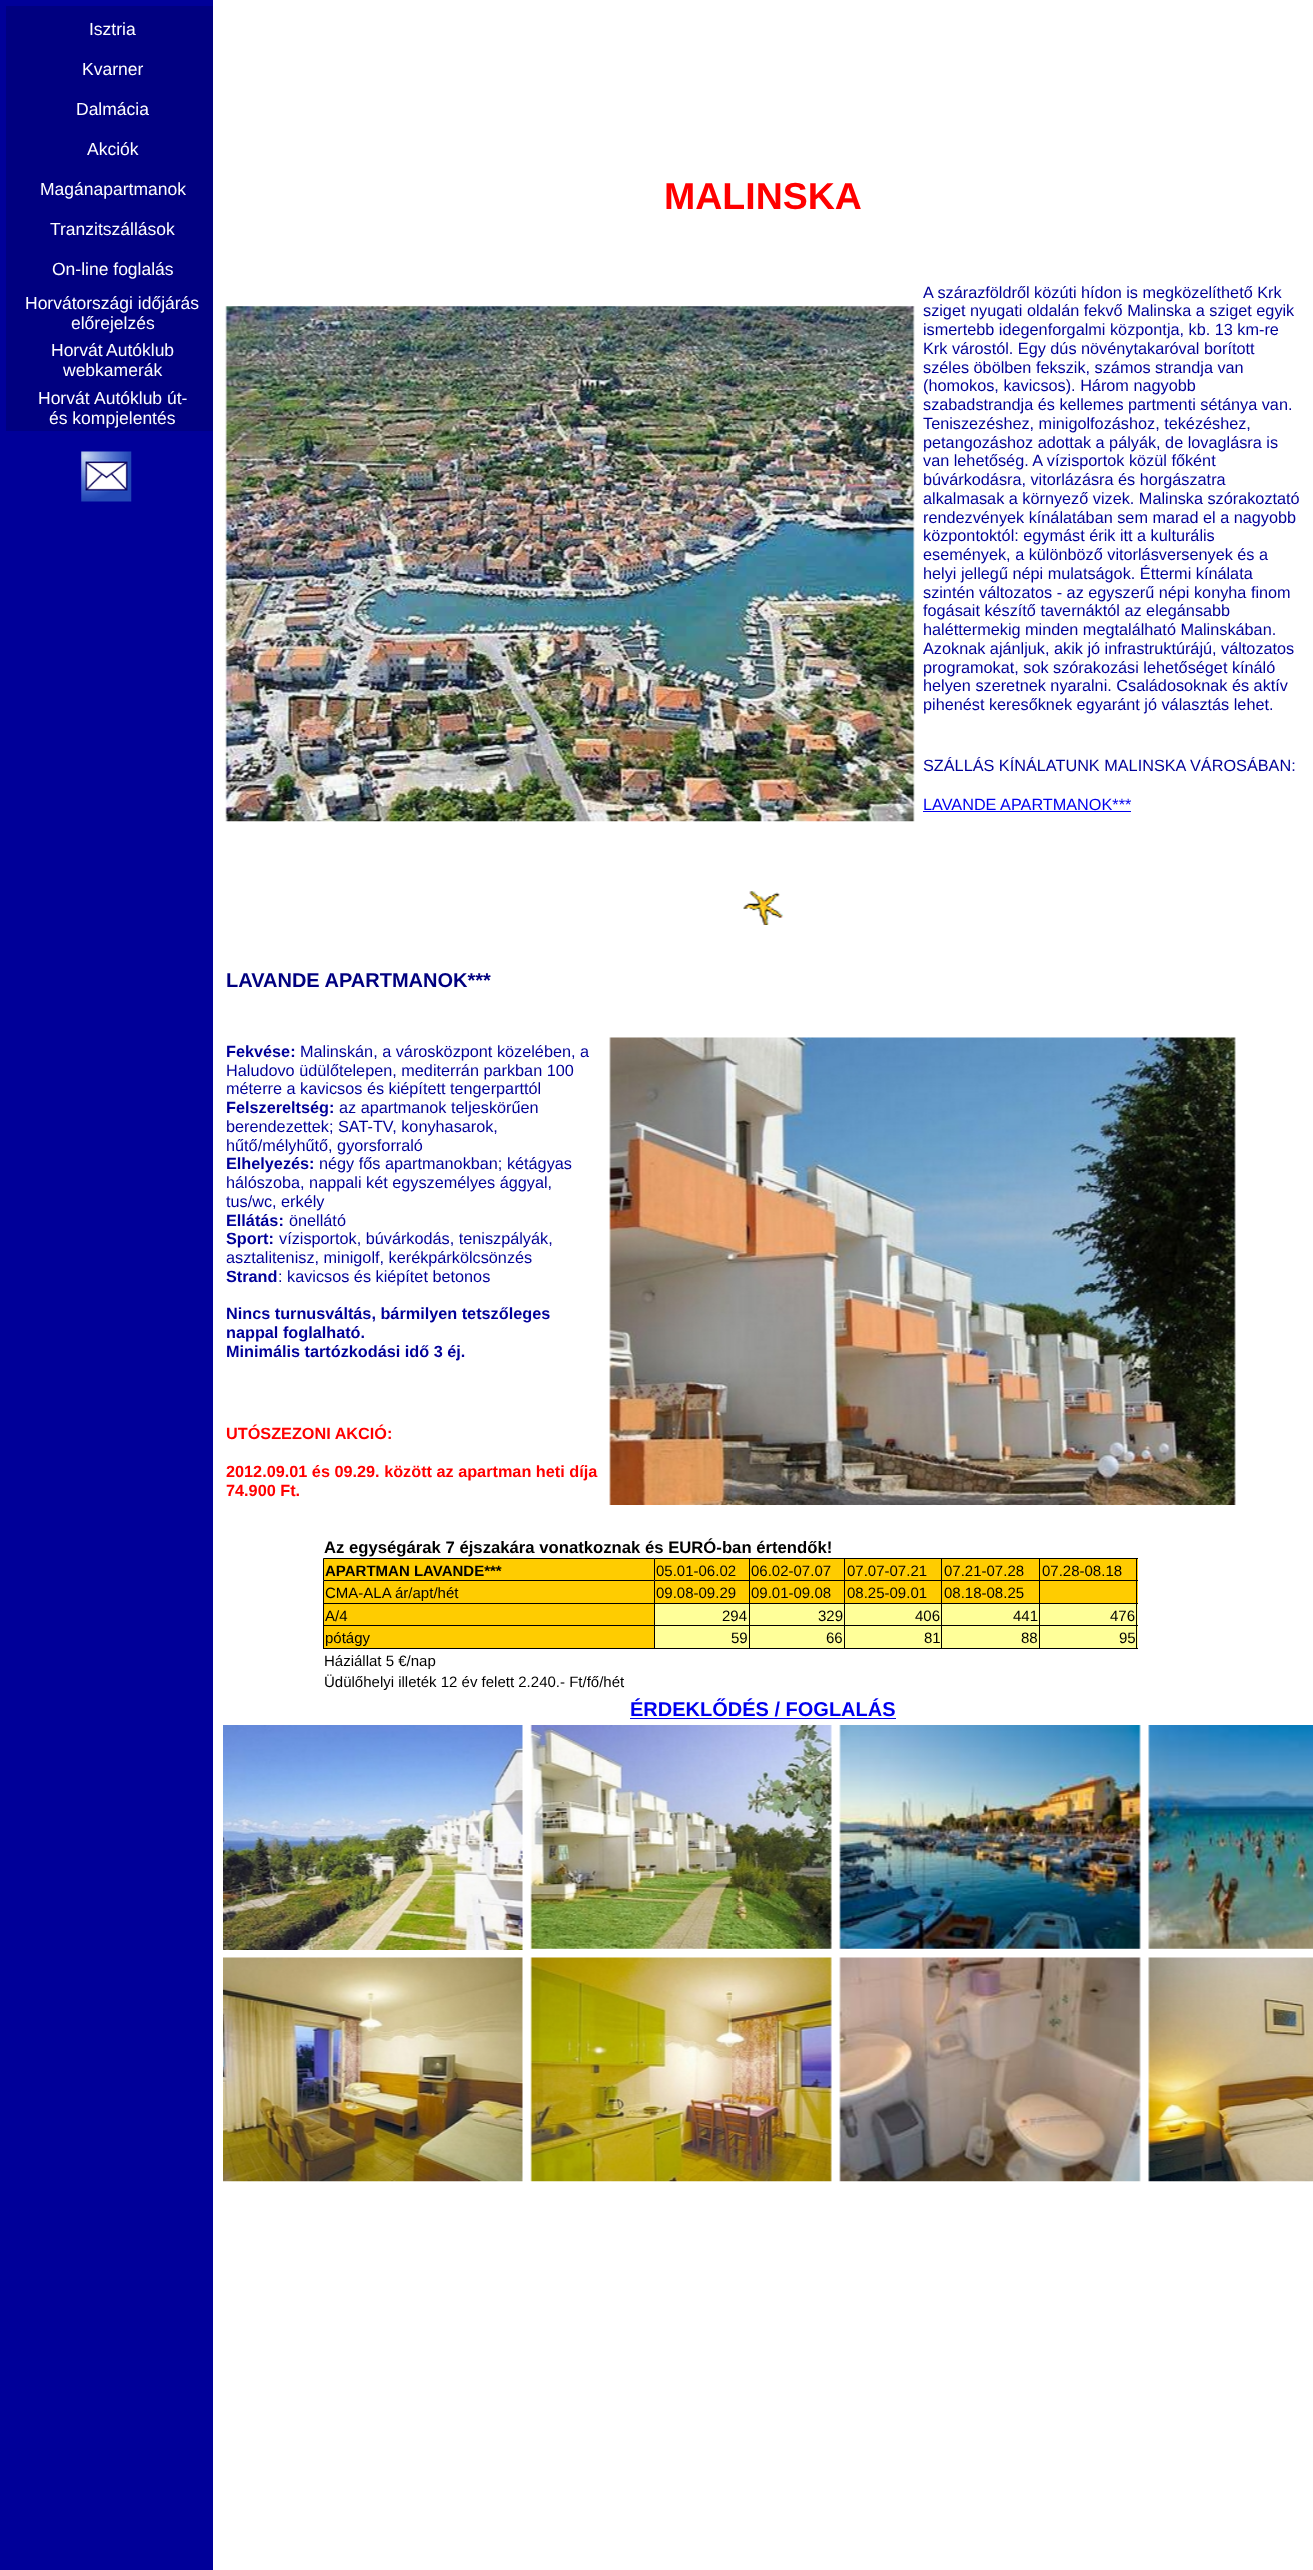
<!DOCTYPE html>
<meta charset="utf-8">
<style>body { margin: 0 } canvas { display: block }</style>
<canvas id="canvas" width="1313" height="2570"></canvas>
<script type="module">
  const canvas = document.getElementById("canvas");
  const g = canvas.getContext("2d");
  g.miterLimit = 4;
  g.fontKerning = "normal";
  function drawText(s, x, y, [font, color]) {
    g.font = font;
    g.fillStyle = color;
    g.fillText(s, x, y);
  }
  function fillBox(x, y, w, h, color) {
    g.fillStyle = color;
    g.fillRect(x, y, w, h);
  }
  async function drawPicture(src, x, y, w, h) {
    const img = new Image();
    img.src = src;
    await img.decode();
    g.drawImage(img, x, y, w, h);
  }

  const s1 = ["17.5px Liberation Sans", "#FFFFFF"];
  const s2 = ["bold 37.5px Liberation Sans", "#FF0000"];
  const s3 = ["16.25px Liberation Sans", "#000099"];
  const s4 = ["16.25px Liberation Sans", "#0000EE"];
  const s5 = ["bold 20px Liberation Sans", "#000080"];
  const s6 = ["bold 16.25px Liberation Sans", "#000099"];
  const s7 = ["bold 16.25px Liberation Sans", "#FF0000"];
  const s8 = ["bold 16.7px Liberation Sans", "#000000"];
  const s9 = ["bold 15px Liberation Sans", "#000000"];
  const s10 = ["15px Liberation Sans", "#000000"];
  const s11 = ["bold 20px Liberation Sans", "#0000EE"];

  fillBox(0, 0, 1313, 2570, "#FFFFFF");
  fillBox(0, 0, 213, 2570, "#000099");
  fillBox(6, 6, 207, 425, "#000080");
  drawText("Isztria", 89, 35, s1);
  drawText("Kvarner", 82, 75, s1);
  drawText("Dalmácia", 76, 115, s1);
  drawText("Akciók", 87, 155, s1);
  drawText("Magánapartmanok", 40, 195, s1);
  drawText("Tranzitszállások", 50, 235, s1);
  drawText("On-line foglalás", 52, 275, s1);
  drawText("Horvátországi időjárás", 25, 309, s1);
  drawText("előrejelzés", 71, 329, s1);
  drawText("Horvát", 51, 356, s1);
  drawText("Autóklub", 106, 356, s1);
  drawText("webkamerák", 63, 376, s1);
  drawText("Horvát", 38, 404, s1);
  drawText("Autóklub út-", 94, 404, s1);
  drawText("és kompjelentés", 49, 424, s1);
  await drawPicture("pic1.png", 81, 451, 51, 51);
  drawText("MALINSKA", 664, 209, s2);
  await drawPicture("pic2.png", 225, 306, 690, 516);
  drawText("A szárazföldről közúti hídon is megközelíthető Krk", 923, 298, s3);
  drawText("sziget nyugati oldalán fekvő Malinska a sziget egyik", 923, 316, s3);
  drawText("ismertebb idegenforgalmi központja, kb. 13 km-re", 923, 335, s3);
  drawText("Krk várostól. Egy dús növénytakaróval borított", 923, 354, s3);
  drawText("széles öbölben fekszik, számos strandja van", 923, 373, s3);
  drawText("(homokos, kavicsos). Három nagyobb", 923, 391, s3);
  drawText("szabadstrandja és kellemes partmenti sétánya van.", 923, 410, s3);
  drawText("Teniszezéshez, minigolfozáshoz, tekézéshez,", 923, 429, s3);
  drawText("petangozáshoz adottak a pályák, de lovaglásra is", 923, 448, s3);
  drawText("van lehetőség. A vízisportok közül főként", 923, 466, s3);
  drawText("búvárkodásra, vitorlázásra és horgászatra", 923, 485, s3);
  drawText("alkalmasak a környező vizek. Malinska szórakoztató", 923, 504, s3);
  drawText("rendezvények kínálatában sem marad el a nagyobb", 923, 523, s3);
  drawText("központoktól: egymást érik itt a kulturális", 923, 541, s3);
  drawText("események, a különböző vitorlásversenyek és a", 923, 560, s3);
  drawText("helyi jellegű népi mulatságok. Éttermi kínálata", 923, 579, s3);
  drawText("szintén változatos - az egyszerű népi konyha finom", 923, 598, s3);
  drawText("fogásait készítő tavernáktól az elegánsabb", 923, 616, s3);
  drawText("haléttermekig minden megtalálható Malinskában.", 923, 635, s3);
  drawText("Azoknak ajánljuk, akik jó infrastruktúrájú, változatos", 923, 654, s3);
  drawText("programokat, sok szórakozási lehetőséget kínáló", 923, 673, s3);
  drawText("helyen szeretnek nyaralni. Családosoknak és aktív", 923, 691, s3);
  drawText("pihenést keresőknek egyaránt jó választás lehet.", 923, 710, s3);
  drawText("SZÁLLÁS KÍNÁLATUNK MALINSKA", 923, 771, s3);
  drawText("VÁROSÁBAN:", 1190, 771, s3);
  drawText("LAVANDE APARTMANOK***", 923, 810, s4);
  fillBox(923, 811, 208, 1, "#0000EE");
  await drawPicture("pic3.png", 743, 891, 41, 34);
  drawText("LAVANDE APARTMANOK***", 226, 987, s5);
  drawText("Fekvése:", 226, 1057, s6);
  drawText("Malinskán, a városközpont közelében, a", 300, 1057, s3);
  drawText("Haludovo üdülőtelepen, mediterrán parkban 100", 226, 1076, s3);
  drawText("méterre a kavicsos és kiépített tengerparttól", 226, 1094, s3);
  drawText("Felszereltség:", 226, 1113, s6);
  drawText("az apartmanok teljeskörűen", 339, 1113, s3);
  drawText("berendezettek; SAT-TV, konyhasarok,", 226, 1132, s3);
  drawText("hűtő/mélyhűtő, gyorsforraló", 226, 1151, s3);
  drawText("Elhelyezés:", 226, 1169, s6);
  drawText("négy fős apartmanokban; kétágyas", 319, 1169, s3);
  drawText("hálószoba, nappali két egyszemélyes ággyal,", 226, 1188, s3);
  drawText("tus/wc, erkély", 226, 1207, s3);
  drawText("Ellátás:", 226, 1226, s6);
  drawText("önellátó", 289, 1226, s3);
  drawText("Sport:", 226, 1244, s6);
  drawText("vízisportok, búvárkodás, teniszpályák,", 279, 1244, s3);
  drawText("asztalitenisz, minigolf, kerékpárkölcsönzés", 226, 1263, s3);
  drawText("Strand", 226, 1282, s6);
  drawText(": kavicsos és kiépítet betonos", 278, 1282, s3);
  drawText("Nincs turnusváltás, bármilyen tetszőleges", 226, 1319, s6);
  drawText("nappal foglalható.", 226, 1338, s6);
  drawText("Minimális tartózkodási idő 3 éj.", 226, 1357, s6);
  drawText("UTÓSZEZONI AKCIÓ:", 226, 1439, s7);
  drawText("2012.09.01 és 09.29. között az apartman heti díja", 226, 1477, s7);
  drawText("74.900 Ft.", 226, 1496, s7);
  await drawPicture("pic4.png", 609, 1037, 627, 468);
  drawText("Az egységárak 7 éjszakára vonatkoznak és EURÓ-ban értendők!", 324, 1553, s8);
  g.fillStyle = "#FFCC00";
  g.beginPath();
  g.rect(323.5, 1558.5, 331, 22);
  g.fill();
  g.strokeStyle = "#000000";
  g.stroke();
  drawText("APARTMAN LAVANDE***", 325, 1576, s9);
  fillBox(655, 1559, 94, 21, "#FFCC00");
  fillBox(655, 1558, 483, 1, "#000000");
  fillBox(749, 1558, 1, 91, "#000000");
  fillBox(655, 1580, 95, 1, "#000000");
  drawText("05.01-06.02", 656, 1576, s10);
  fillBox(750, 1559, 94, 21, "#FFCC00");
  fillBox(844, 1558, 1, 91, "#000000");
  fillBox(750, 1580, 95, 1, "#000000");
  drawText("06.02-07.07", 751, 1576, s10);
  fillBox(845, 1559, 194, 21, "#FFCC00");
  fillBox(941, 1558, 1, 23, "#000000");
  fillBox(845, 1580, 98, 1, "#000000");
  drawText("07.07-07.21", 847, 1576, s10);
  fillBox(1039, 1558, 1, 91, "#000000");
  fillBox(943, 1580, 97, 1, "#000000");
  drawText("07.21-07.28", 944, 1576, s10);
  fillBox(1040, 1559, 98, 21, "#FFCC00");
  fillBox(1136, 1558, 1, 23, "#000000");
  fillBox(1040, 1580, 98, 1, "#000000");
  drawText("07.28-08.18", 1042, 1576, s10);
  fillBox(324, 1581, 330, 22, "#FFCC00");
  fillBox(654, 1581, 1, 68, "#000000");
  fillBox(323, 1603, 522, 1, "#000000");
  fillBox(323, 1581, 1, 23, "#000000");
  drawText("CMA-ALA ár/apt/hét", 325, 1598, s10);
  fillBox(655, 1581, 94, 22, "#FFCC00");
  drawText("09.08-09.29", 656, 1598, s10);
  fillBox(750, 1581, 94, 22, "#FFCC00");
  drawText("09.01-09.08", 751, 1598, s10);
  fillBox(845, 1581, 194, 22, "#FFCC00");
  fillBox(941, 1581, 1, 23, "#000000");
  fillBox(845, 1603, 195, 1, "#000000");
  drawText("08.25-09.01", 847, 1598, s10);
  drawText("08.18-08.25", 944, 1598, s10);
  fillBox(1040, 1581, 98, 22, "#FFCC00");
  fillBox(1136, 1581, 1, 23, "#000000");
  fillBox(1040, 1603, 98, 1, "#000000");
  fillBox(324, 1604, 330, 21, "#FFCC00");
  fillBox(323, 1625, 522, 1, "#000000");
  fillBox(323, 1604, 1, 22, "#000000");
  drawText("A/4", 325, 1621, s10);
  fillBox(655, 1604, 94, 21, "#FFFF99");
  drawText("294", 722, 1621, s10);
  fillBox(750, 1604, 94, 21, "#FFFF99");
  drawText("329", 818, 1621, s10);
  fillBox(845, 1604, 194, 21, "#FFFF99");
  fillBox(941, 1604, 1, 22, "#000000");
  fillBox(845, 1625, 195, 1, "#000000");
  drawText("406", 915, 1621, s10);
  drawText("441", 1013, 1621, s10);
  fillBox(1040, 1604, 98, 21, "#FFFF99");
  fillBox(1136, 1604, 1, 22, "#000000");
  fillBox(1040, 1625, 98, 1, "#000000");
  drawText("476", 1110, 1621, s10);
  fillBox(324, 1626, 330, 22, "#FFCC00");
  fillBox(323, 1648, 522, 1, "#000000");
  fillBox(323, 1626, 1, 23, "#000000");
  drawText("pótágy", 325, 1643, s10);
  fillBox(655, 1626, 94, 22, "#FFFF99");
  drawText("59", 731, 1643, s10);
  fillBox(750, 1626, 94, 22, "#FFFF99");
  drawText("66", 826, 1643, s10);
  fillBox(845, 1626, 194, 22, "#FFFF99");
  fillBox(941, 1626, 1, 23, "#000000");
  fillBox(845, 1648, 195, 1, "#000000");
  drawText("81", 924, 1643, s10);
  drawText("88", 1021, 1643, s10);
  fillBox(1040, 1626, 98, 22, "#FFFF99");
  fillBox(1136, 1626, 1, 23, "#000000");
  fillBox(1040, 1648, 98, 1, "#000000");
  drawText("95", 1119, 1643, s10);
  drawText("Háziállat 5 €/nap", 324, 1666, s10);
  drawText("Üdülőhelyi illeték 12 év felett 2.240.- Ft/fő/hét", 324, 1687, s10);
  drawText("ÉRDEKLŐDÉS / FOGLALÁS", 630, 1716, s11);
  fillBox(630, 1718, 266, 1, "#0000EE");
  await drawPicture("pic5.png", 223, 1725, 300, 225);
  await drawPicture("pic6.png", 530, 1725, 302, 224);
  await drawPicture("pic7.png", 839, 1725, 302, 224);
  await drawPicture("pic8.png", 1148, 1725, 165, 224);
  await drawPicture("pic9.png", 223, 1957, 300, 225);
  await drawPicture("pic10.png", 530, 1957, 302, 225);
  await drawPicture("pic11.png", 839, 1957, 302, 225);
  await drawPicture("pic12.png", 1148, 1957, 165, 225);
</script>
